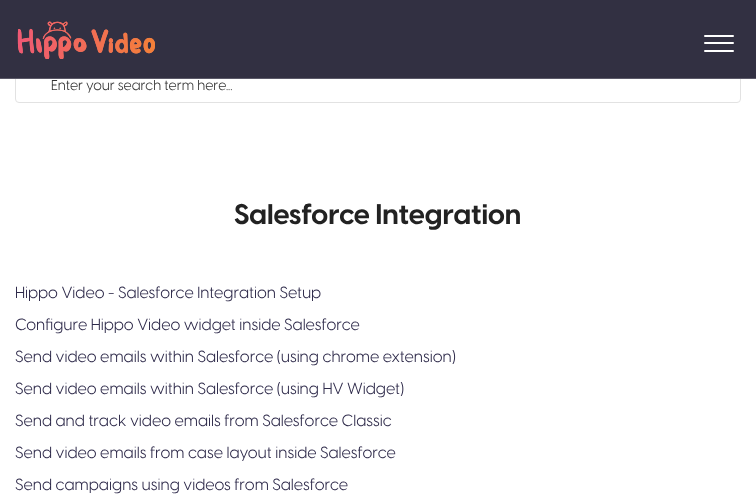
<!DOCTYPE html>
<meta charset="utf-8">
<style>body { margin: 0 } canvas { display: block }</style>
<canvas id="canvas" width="756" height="498"></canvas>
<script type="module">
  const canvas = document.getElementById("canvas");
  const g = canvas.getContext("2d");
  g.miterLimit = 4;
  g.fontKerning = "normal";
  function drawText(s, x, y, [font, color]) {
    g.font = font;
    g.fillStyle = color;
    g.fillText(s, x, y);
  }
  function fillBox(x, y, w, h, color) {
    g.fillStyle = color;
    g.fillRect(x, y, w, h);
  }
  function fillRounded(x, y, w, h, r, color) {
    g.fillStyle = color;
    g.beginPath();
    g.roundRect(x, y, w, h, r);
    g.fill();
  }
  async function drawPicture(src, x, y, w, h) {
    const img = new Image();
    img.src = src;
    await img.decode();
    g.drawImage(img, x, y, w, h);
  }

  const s1 = ["14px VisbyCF", "#333333"];
  const s2 = ["bold 28px Visby CF", "#222222"];
  const s3 = ["16px VisbyCF", "#2E2A4A"];

  fillBox(0, 0, 756, 498, "#FFFFFF");
  g.beginPath();
  g.roundRect(15.5, 68.5, 725, 34, 3.5);
  g.strokeStyle = "#E2E2E2";
  g.stroke();
  fillBox(0, 0, 756, 78, "#323042");
  fillBox(0, 78, 756, 1, "#5B5968");
  await drawPicture("pic1.png", 17, 21, 138, 38);
  fillRounded(704, 42, 30, 2, 1, "#FFFFFF");
  fillRounded(704, 35, 30, 2, 1, "#FFFFFF");
  fillRounded(704, 50, 30, 2, 1, "#FFFFFF");
  drawText("Enter your search term here...", 51, 90, s1);
  drawText("Salesforce Integration", 234, 224, s2);
  drawText("Hippo Video - Salesforce Integration Setup", 15, 298, s3);
  drawText("Configure Hippo Video widget inside Salesforce", 15, 330, s3);
  drawText("Send video emails within Salesforce (using chrome extension)", 15, 362, s3);
  drawText("Send video emails within Salesforce (using HV Widget)", 15, 394, s3);
  drawText("Send and track video emails from Salesforce Classic", 15, 426, s3);
  drawText("Send video emails from case layout inside Salesforce", 15, 458, s3);
  drawText("Send campaigns using videos from Salesforce", 15, 490, s3);
</script>
